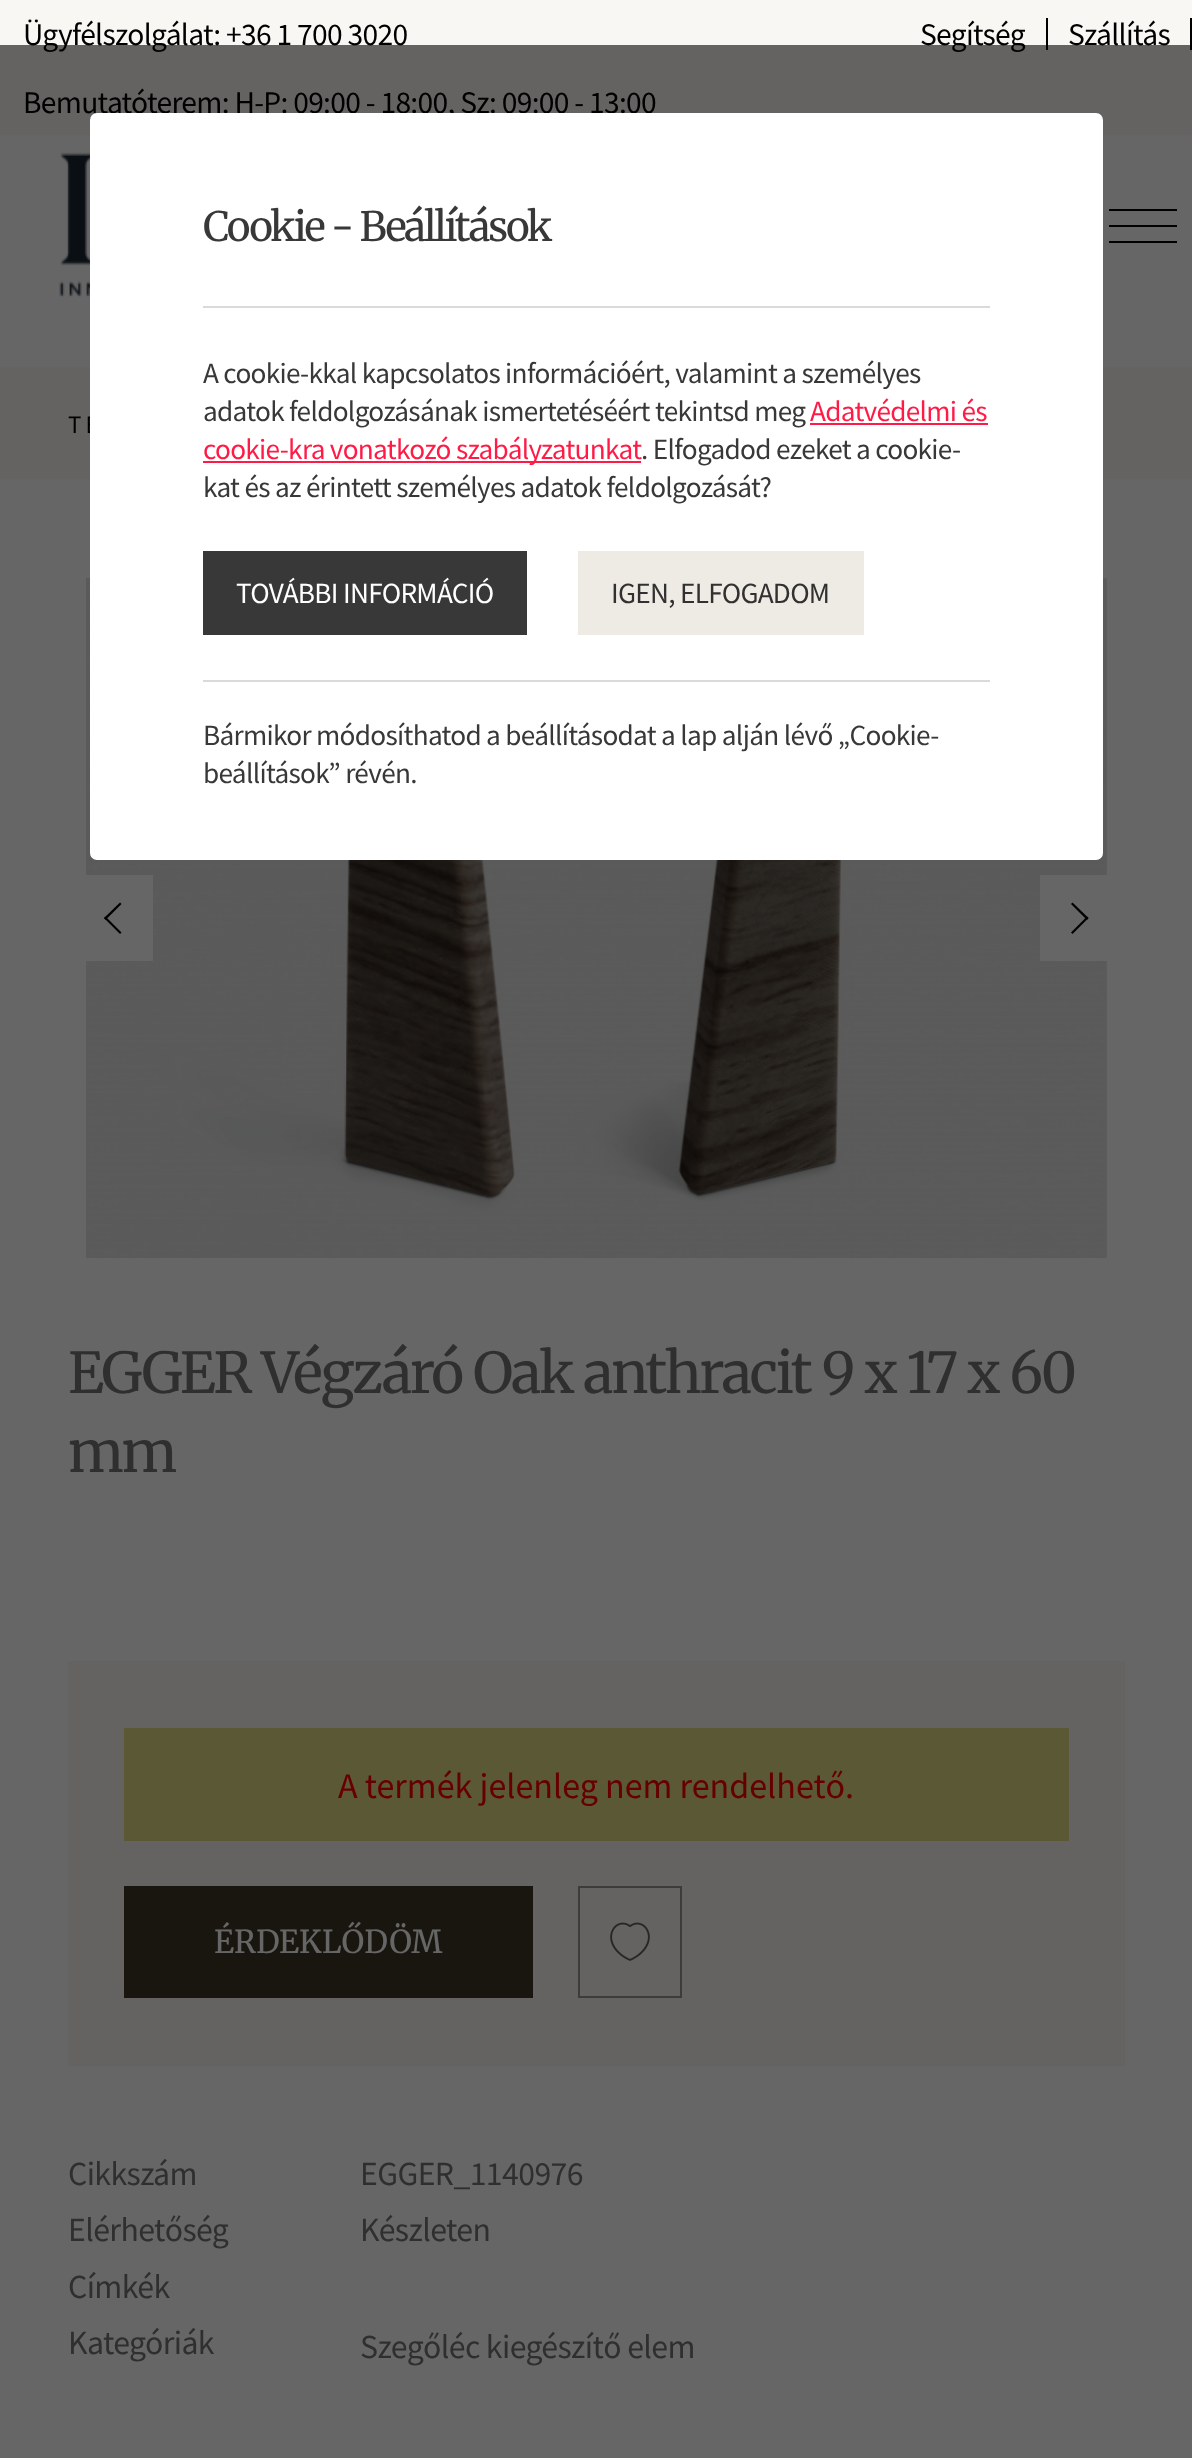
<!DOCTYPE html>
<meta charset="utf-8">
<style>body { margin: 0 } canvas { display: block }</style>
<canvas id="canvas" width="1192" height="2458"></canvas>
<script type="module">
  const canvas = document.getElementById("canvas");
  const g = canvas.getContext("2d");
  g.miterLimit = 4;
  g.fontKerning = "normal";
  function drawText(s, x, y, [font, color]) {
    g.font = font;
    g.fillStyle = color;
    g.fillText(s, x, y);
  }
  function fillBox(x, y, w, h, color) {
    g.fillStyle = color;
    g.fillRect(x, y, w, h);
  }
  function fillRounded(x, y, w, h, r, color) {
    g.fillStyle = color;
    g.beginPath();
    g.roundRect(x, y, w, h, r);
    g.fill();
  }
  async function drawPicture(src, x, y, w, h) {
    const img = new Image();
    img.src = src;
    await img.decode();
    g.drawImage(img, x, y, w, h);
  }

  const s1 = ["31.5px Source Sans Pro", "#000000"];
  const s2 = ["25px Source Sans Pro", "#000000"];
  const s3 = ["56.25px Merriweather", "#777777"];
  const s4 = ["36px Source Sans Pro", "#FF0000"];
  const s5 = ["31.5px Merriweather", "#FFFFFF"];
  const s6 = ["33.75px Source Sans Pro", "#777777"];
  const s7 = ["40.5px Merriweather", "#383838"];
  const s8 = ["29.25px Source Sans Pro", "#383838"];
  const s9 = ["29.25px Source Sans Pro", "#FF1B46"];
  const s10 = ["29.25px Source Sans Pro", "#FFFFFF"];
  const s11 = ["29.25px Source Sans Pro", "#313131"];

  fillBox(0, 0, 1192, 2458, "#FFFFFF");
  fillBox(0, 0, 1192, 135, "#F9F7F3");
  g.letterSpacing = "-0.7px";
  drawText("Ügyfélszolgálat: +36 1 700 3020", 23, 45, s1);
  drawText("Segítség", 920, 45, s1);
  fillBox(1046, 18, 2, 32, "#000000");
  drawText("Szállítás", 1068, 45, s1);
  fillBox(1190, 18, 2, 32, "#000000");
  drawText("Bemutatóterem: H-P: 09:00 - 18:00, Sz: 09:00 - 13:00", 23, 113, s1);
  await drawPicture("pic1.png", 59, 152, 31, 145);
  fillBox(1109, 209, 68, 2, "#000000");
  fillBox(1109, 225, 68, 2, "#000000");
  fillBox(1109, 241, 68, 2, "#000000");
  fillBox(0, 367, 1192, 112, "#F9F7F3");
  g.letterSpacing = "4px";
  drawText("TE", 68, 433, s2);
  await drawPicture("pic2.png", 86, 578, 1021, 680);
  fillBox(86, 875, 67, 86, "#FFFFFF");
  g.fillStyle = "#000000";
  g.beginPath();
  g.moveTo(105.5, 916.5);
  g.lineTo(121.5, 932.5);
  g.lineTo(120, 934);
  g.lineTo(104, 918);
  g.closePath();
  g.fill();
  g.beginPath();
  g.moveTo(120, 902.5);
  g.lineTo(121.5, 904);
  g.lineTo(105.5, 920);
  g.lineTo(104, 918);
  g.closePath();
  g.fill();
  fillBox(1040, 875, 67, 86, "#FFFFFF");
  g.fillStyle = "#000000";
  g.beginPath();
  g.moveTo(1087, 920);
  g.lineTo(1071, 904);
  g.lineTo(1072.5, 902.5);
  g.lineTo(1088.5, 918);
  g.closePath();
  g.fill();
  g.beginPath();
  g.moveTo(1072.5, 934);
  g.lineTo(1071, 932.5);
  g.lineTo(1087, 916.5);
  g.lineTo(1088.5, 918);
  g.closePath();
  g.fill();
  g.letterSpacing = "-2.3px";
  drawText("EGGER Végzáró Oak anthracit 9 x 17 x 60", 68, 1393, s3);
  drawText("mm", 68, 1472, s3);
  fillBox(68, 1661, 1057, 405, "#F9F7F3");
  fillBox(124, 1728, 945, 113, "#E2DB84");
  g.letterSpacing = "0px";
  drawText("A termék jelenleg nem rendelhető.", 338, 1798, s4);
  fillBox(124, 1886, 409, 112, "#3E3725");
  drawText("ÉRDEKLŐDÖM", 214, 1953, s5);
  g.strokeStyle = "#979797";
  g.lineWidth = 2;
  g.strokeRect(579, 1887, 102, 110);
  await drawPicture("pic3.png", 610, 1922, 40, 39);
  g.letterSpacing = "-0.6px";
  drawText("Cikkszám", 68, 2185, s6);
  drawText("EGGER_1140976", 360, 2185, s6);
  drawText("Elérhetőség", 68, 2241, s6);
  drawText("Készleten", 360, 2241, s6);
  drawText("Címkék", 68, 2298, s6);
  drawText("Kategóriák", 68, 2354, s6);
  drawText("Szegőléc kiegészítő elem", 360, 2358, s6);
  fillBox(0, 45, 1192, 2413, "rgba(0, 0, 0, 0.6)");
  fillRounded(90, 113, 1013, 747, 7, "#FFFFFF");
  fillBox(203, 306, 787, 2, "#DADADA");
  g.letterSpacing = "-2.25px";
  drawText("Cookie - Beállítások", 203, 241, s7);
  g.letterSpacing = "-0.7px";
  drawText("A cookie-kkal kapcsolatos információért, valamint a személyes", 203, 383, s8);
  drawText("adatok feldolgozásának ismertetéséért tekintsd meg", 203, 421, s8);
  drawText("Adatvédelmi és", 810, 421, s9);
  fillBox(810, 423, 178, 2, "#FF1B46");
  fillBox(203, 461, 438, 2, "#FF1B46");
  drawText("cookie-kra vonatkozó szabályzatunkat", 203, 459, s9);
  drawText(". Elfogadod ezeket a cookie-", 641, 459, s8);
  drawText("kat és az érintett személyes adatok feldolgozását?", 203, 497, s8);
  fillBox(203, 551, 324, 84, "#383838");
  drawText("TOVÁBBI INFORMÁCIÓ", 236, 603, s10);
  fillBox(578, 551, 286, 84, "#EEEBE4");
  drawText("IGEN, ELFOGADOM", 611, 603, s11);
  fillBox(203, 680, 787, 2, "#DADADA");
  drawText("Bármikor módosíthatod a beállításodat a lap alján lévő „Cookie-", 203, 745, s8);
  drawText("beállítások” révén.", 203, 783, s8);
</script>
